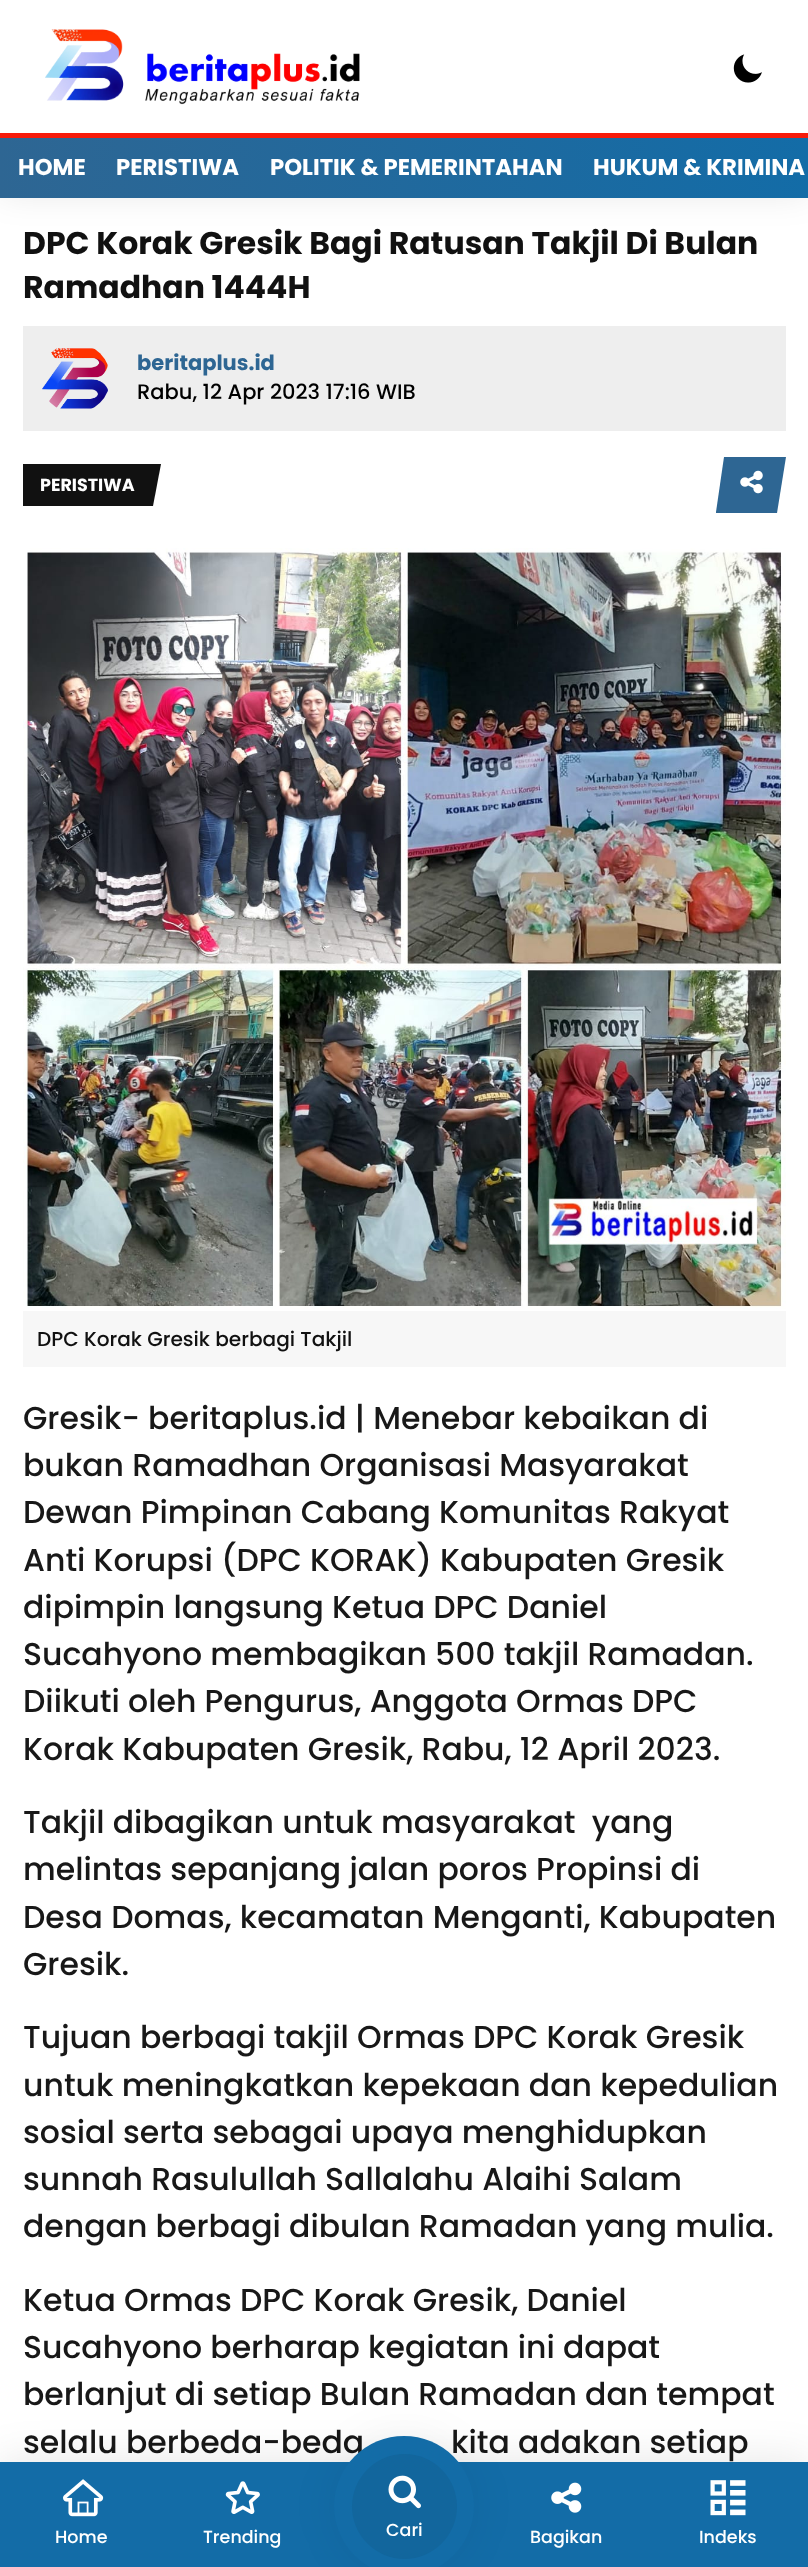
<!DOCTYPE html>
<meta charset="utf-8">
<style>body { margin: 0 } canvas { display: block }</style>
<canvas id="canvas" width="808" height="2567"></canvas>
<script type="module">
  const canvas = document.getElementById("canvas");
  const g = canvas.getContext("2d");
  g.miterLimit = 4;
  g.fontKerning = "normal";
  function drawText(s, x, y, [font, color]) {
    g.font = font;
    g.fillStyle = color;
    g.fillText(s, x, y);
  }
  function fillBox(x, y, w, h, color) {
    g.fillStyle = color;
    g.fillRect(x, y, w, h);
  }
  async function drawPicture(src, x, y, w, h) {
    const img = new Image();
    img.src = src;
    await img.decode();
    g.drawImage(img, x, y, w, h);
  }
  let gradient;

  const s1 = ["bold 22.75px Poppins", "#FFFFFF"];
  const s2 = ["bold 31.5px Poppins", "#111111"];
  const s3 = ["bold 21px Poppins", "#2E6693"];
  const s4 = ["500 21px Poppins", "#000000"];
  const s5 = ["bold 17.5px Poppins", "#FFFFFF"];
  const s6 = ["500 20.1px Poppins", "#111111"];
  const s7 = ["500 31.5px Poppins", "#181818"];
  const s8 = ["500 17.5px Poppins", "#FFFFFF"];

  fillBox(0, 0, 808, 2567, "#FFFFFF");
  g.fillStyle = "rgba(0, 0, 0, 0.1)";
  g.filter = "blur(17.5px)";
  g.beginPath();
  g.rect(0, 0, 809, 193);
  g.fill();
  g.filter = "none";
  fillBox(0, 0, 808, 133, "#FFFFFF");
  await drawPicture("pic1.png", 45, 29, 315, 76);
  await drawPicture("pic2.png", 733, 54, 29, 29);
  gradient = g.createLinearGradient(0, 168, 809, 168);
  gradient.addColorStop(0, "#2E6693");
  gradient.addColorStop(1, "#136CA7");
  g.fillStyle = gradient;
  g.fillRect(0, 138, 808, 60);
  fillBox(0, 133, 808, 5, "#F71B0A");
  drawText("HOME", 18, 175, s1);
  drawText("PERISTIWA", 116, 175, s1);
  drawText("POLITIK & PEMERINTAHAN", 270, 175, s1);
  drawText("HUKUM & KRIMINA", 593, 175, s1);
  drawText("DPC Korak Gresik Bagi Ratusan Takjil Di Bulan", 23, 254, s2);
  drawText("Ramadhan 1444H", 23, 298, s2);
  fillBox(23, 326, 763, 105, "#EEEEEE");
  await drawPicture("pic3.png", 42, 348, 66, 61);
  drawText("beritaplus.id", 137, 370, s3);
  drawText("Rabu, 12 Apr 2023 17:16 WIB", 137, 399, s4);
  g.fillStyle = "#111111";
  g.beginPath();
  g.moveTo(153, 506);
  g.lineTo(23, 506);
  g.lineTo(23, 464);
  g.lineTo(161, 464);
  g.closePath();
  g.fill();
  drawText("PERISTIWA", 40, 491, s5);
  g.fillStyle = "#2E6693";
  g.beginPath();
  g.moveTo(724, 457);
  g.lineTo(786, 457);
  g.lineTo(777, 513);
  g.lineTo(716, 513);
  g.lineTo(716, 512);
  g.closePath();
  g.fill();
  await drawPicture("pic4.png", 740, 470, 23, 24);
  await drawPicture("pic5.png", 23, 548, 763, 761);
  fillBox(23, 1311, 763, 56, "#F7F7F7");
  drawText("DPC Korak Gresik berbagi Takjil", 37, 1346, s6);
  drawText("Gresik- beritaplus.id | Menebar kebaikan di", 23, 1429, s7);
  drawText("bukan Ramadhan Organisasi Masyarakat", 23, 1476, s7);
  drawText("Dewan Pimpinan Cabang Komunitas Rakyat", 23, 1523, s7);
  drawText("Anti Korupsi (DPC KORAK) Kabupaten Gresik", 23, 1571, s7);
  drawText("dipimpin langsung Ketua DPC Daniel", 23, 1618, s7);
  drawText("Sucahyono membagikan 500 takjil Ramadan.", 23, 1665, s7);
  drawText("Diikuti oleh Pengurus, Anggota Ormas DPC", 23, 1712, s7);
  drawText("Korak Kabupaten Gresik, Rabu, 12 April 2023.", 23, 1760, s7);
  drawText("Takjil dibagikan untuk masyarakat  yang", 23, 1833, s7);
  drawText("melintas sepanjang jalan poros Propinsi di", 23, 1880, s7);
  drawText("Desa Domas, kecamatan Menganti, Kabupaten", 23, 1928, s7);
  drawText("Gresik.", 23, 1975, s7);
  drawText("Tujuan berbagi takjil Ormas DPC Korak Gresik", 23, 2048, s7);
  drawText("untuk meningkatkan kepekaan dan kepedulian", 23, 2096, s7);
  drawText("sosial serta sebagai upaya menghidupkan", 23, 2143, s7);
  drawText("sunnah Rasulullah Sallalahu Alaihi Salam", 23, 2190, s7);
  drawText("dengan berbagi dibulan Ramadan yang mulia.", 23, 2237, s7);
  drawText("Ketua Ormas DPC Korak Gresik, Daniel", 23, 2311, s7);
  drawText("Sucahyono berharap kegiatan ini dapat", 23, 2358, s7);
  drawText("berlanjut di setiap Bulan Ramadan dan tempat", 23, 2405, s7);
  drawText("selalu berbeda-beda", 23, 2453, s7);
  drawText("kita adakan setiap", 451, 2453, s7);
  g.fillStyle = "rgba(0, 0, 0, 0.1)";
  g.filter = "blur(22px)";
  g.beginPath();
  g.rect(0, 2462, 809, 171);
  g.fill();
  g.filter = "none";
  fillBox(0, 2462, 808, 105, "#136CA7");
  await drawPicture("pic6.png", 63, 2479, 41, 38);
  drawText("Home", 55, 2543, s8);
  await drawPicture("pic7.png", 225, 2481, 35, 33);
  drawText("Trending", 203, 2543, s8);
  g.fillStyle = "rgba(0, 0, 0, 0.05)";
  g.filter = "blur(22px)";
  g.beginPath();
  g.roundRect(334, 2436, 140, 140, 70);
  g.fill();
  g.filter = "none";
  g.fillStyle = "#136CA7";
  g.beginPath();
  g.arc(404, 2506, 70, 0, Math.PI * 2);
  g.fill();
  g.fillStyle = "#12669D";
  g.beginPath();
  g.arc(404.5, 2506.5, 52.5, 0, Math.PI * 2);
  g.fill();
  await drawPicture("pic8.png", 388, 2475, 33, 34);
  drawText("Cari", 386, 2536, s8);
  await drawPicture("pic9.png", 551, 2482, 31, 31);
  drawText("Bagikan", 530, 2543, s8);
  await drawPicture("pic10.png", 710, 2480, 36, 36);
  drawText("Indeks", 699, 2543, s8);
</script>
